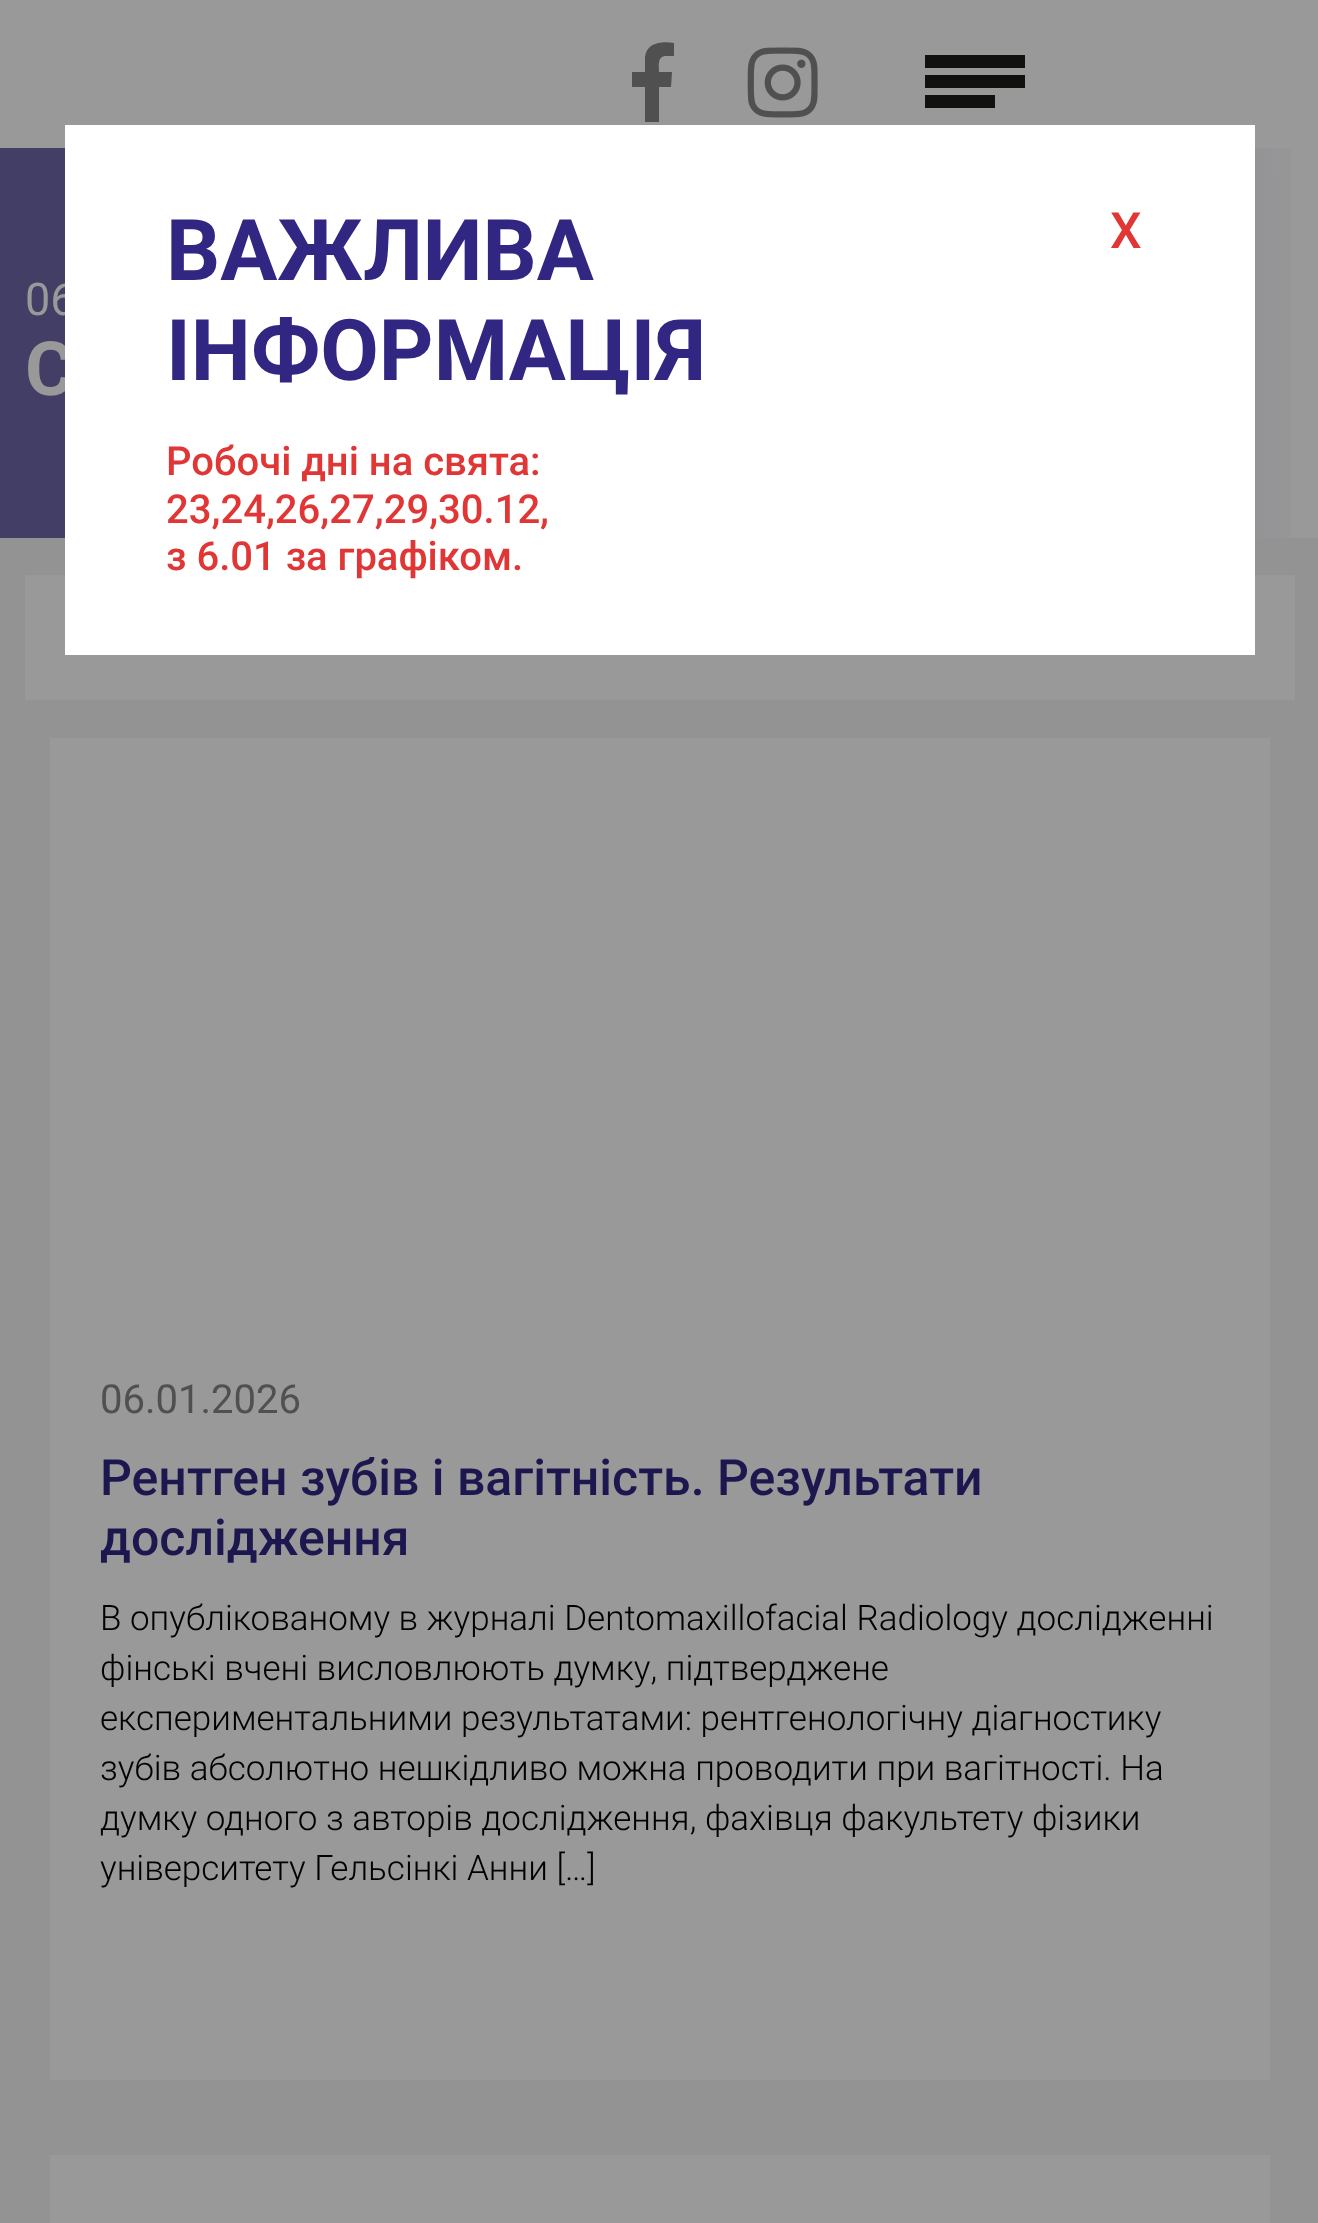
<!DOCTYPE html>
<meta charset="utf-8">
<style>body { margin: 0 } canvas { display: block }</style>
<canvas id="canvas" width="1318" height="2223"></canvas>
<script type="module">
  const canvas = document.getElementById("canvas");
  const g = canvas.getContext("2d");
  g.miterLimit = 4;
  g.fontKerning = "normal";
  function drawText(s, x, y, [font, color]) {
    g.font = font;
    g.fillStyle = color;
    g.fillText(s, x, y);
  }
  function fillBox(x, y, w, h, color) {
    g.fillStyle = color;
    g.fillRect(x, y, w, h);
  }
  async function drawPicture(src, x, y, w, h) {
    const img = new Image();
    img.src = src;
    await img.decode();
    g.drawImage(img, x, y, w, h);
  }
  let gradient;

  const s1 = ["45px Roboto", "#999999"];
  const s2 = ["bold 75px Roboto", "#999999"];
  const s3 = ["bold 85px Roboto", "#312783"];
  const s4 = ["500 50px Roboto", "#E03636"];
  const s5 = ["500 40px Roboto", "#E03636"];
  const s6 = ["40px Roboto", "#505050"];
  const s7 = ["500 50px Roboto", "#1D174F"];
  const s8 = ["300 35px Roboto", "#000000"];

  fillBox(0, 0, 1318, 2223, "#999999");
  g.fillStyle = "#505050";
  g.beginPath();
  g.moveTo(666, 56);
  g.bezierCurveTo(657, 56, 659, 66, 659, 72);
  g.lineTo(672, 72);
  g.lineTo(671, 87);
  g.lineTo(659, 87);
  g.lineTo(659, 122);
  g.lineTo(645, 122);
  g.lineTo(645, 87);
  g.lineTo(632, 87);
  g.lineTo(632, 72);
  g.lineTo(645, 72);
  g.lineTo(645, 57);
  g.bezierCurveTo(647, 42, 662, 41, 674, 43);
  g.lineTo(674, 56);
  g.closePath();
  g.fill();
  await drawPicture("pic1.png", 747, 47, 71, 71);
  fillBox(925, 55, 100, 13, "#111110");
  fillBox(925, 75, 100, 13, "#111110");
  fillBox(925, 95, 70, 13, "#111110");
  gradient = g.createLinearGradient(0, 343, 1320, 342);
  gradient.addColorStop(0.2, "#433E65");
  gradient.addColorStop(1, "#999999");
  g.fillStyle = gradient;
  g.fillRect(0, 148, 1291, 390);
  drawText("06", 25, 315, s1);
  drawText("С", 25, 395, s2);
  fillBox(0, 538, 1318, 1685, "#939393");
  fillBox(25, 575, 1270, 125, "#999999");
  fillBox(65, 125, 1190, 530, "#FFFFFF");
  drawText("ВАЖЛИВА", 166, 280, s3);
  drawText("ІНФОРМАЦІЯ", 166, 380, s3);
  drawText("Х", 1110, 248, s4);
  drawText("Робочі дні на свята:", 166, 475, s5);
  drawText("23,24,26,27,29,30.12,", 166, 523, s5);
  drawText("з 6.01 за графіком.", 166, 570, s5);
  fillBox(50, 738, 1220, 1342, "#999999");
  drawText("06.01.2026", 100, 1413, s6);
  drawText("Рентген зубів і вагітність. Результати", 100, 1495, s7);
  drawText("дослідження", 100, 1555, s7);
  drawText("В опублікованому в журналі Dentomaxillofacial Radiology дослідженні", 100, 1630, s8);
  drawText("фінські вчені висловлюють думку, підтверджене", 100, 1680, s8);
  drawText("експериментальними результатами: рентгенологічну діагностику", 100, 1730, s8);
  drawText("зубів абсолютно нешкідливо можна проводити при вагітності. На", 100, 1780, s8);
  drawText("думку одного з авторів дослідження, фахівця факультету фізики", 100, 1830, s8);
  drawText("університету Гельсінкі Анни […]", 100, 1880, s8);
  fillBox(50, 2155, 1220, 68, "#999999");
</script>
